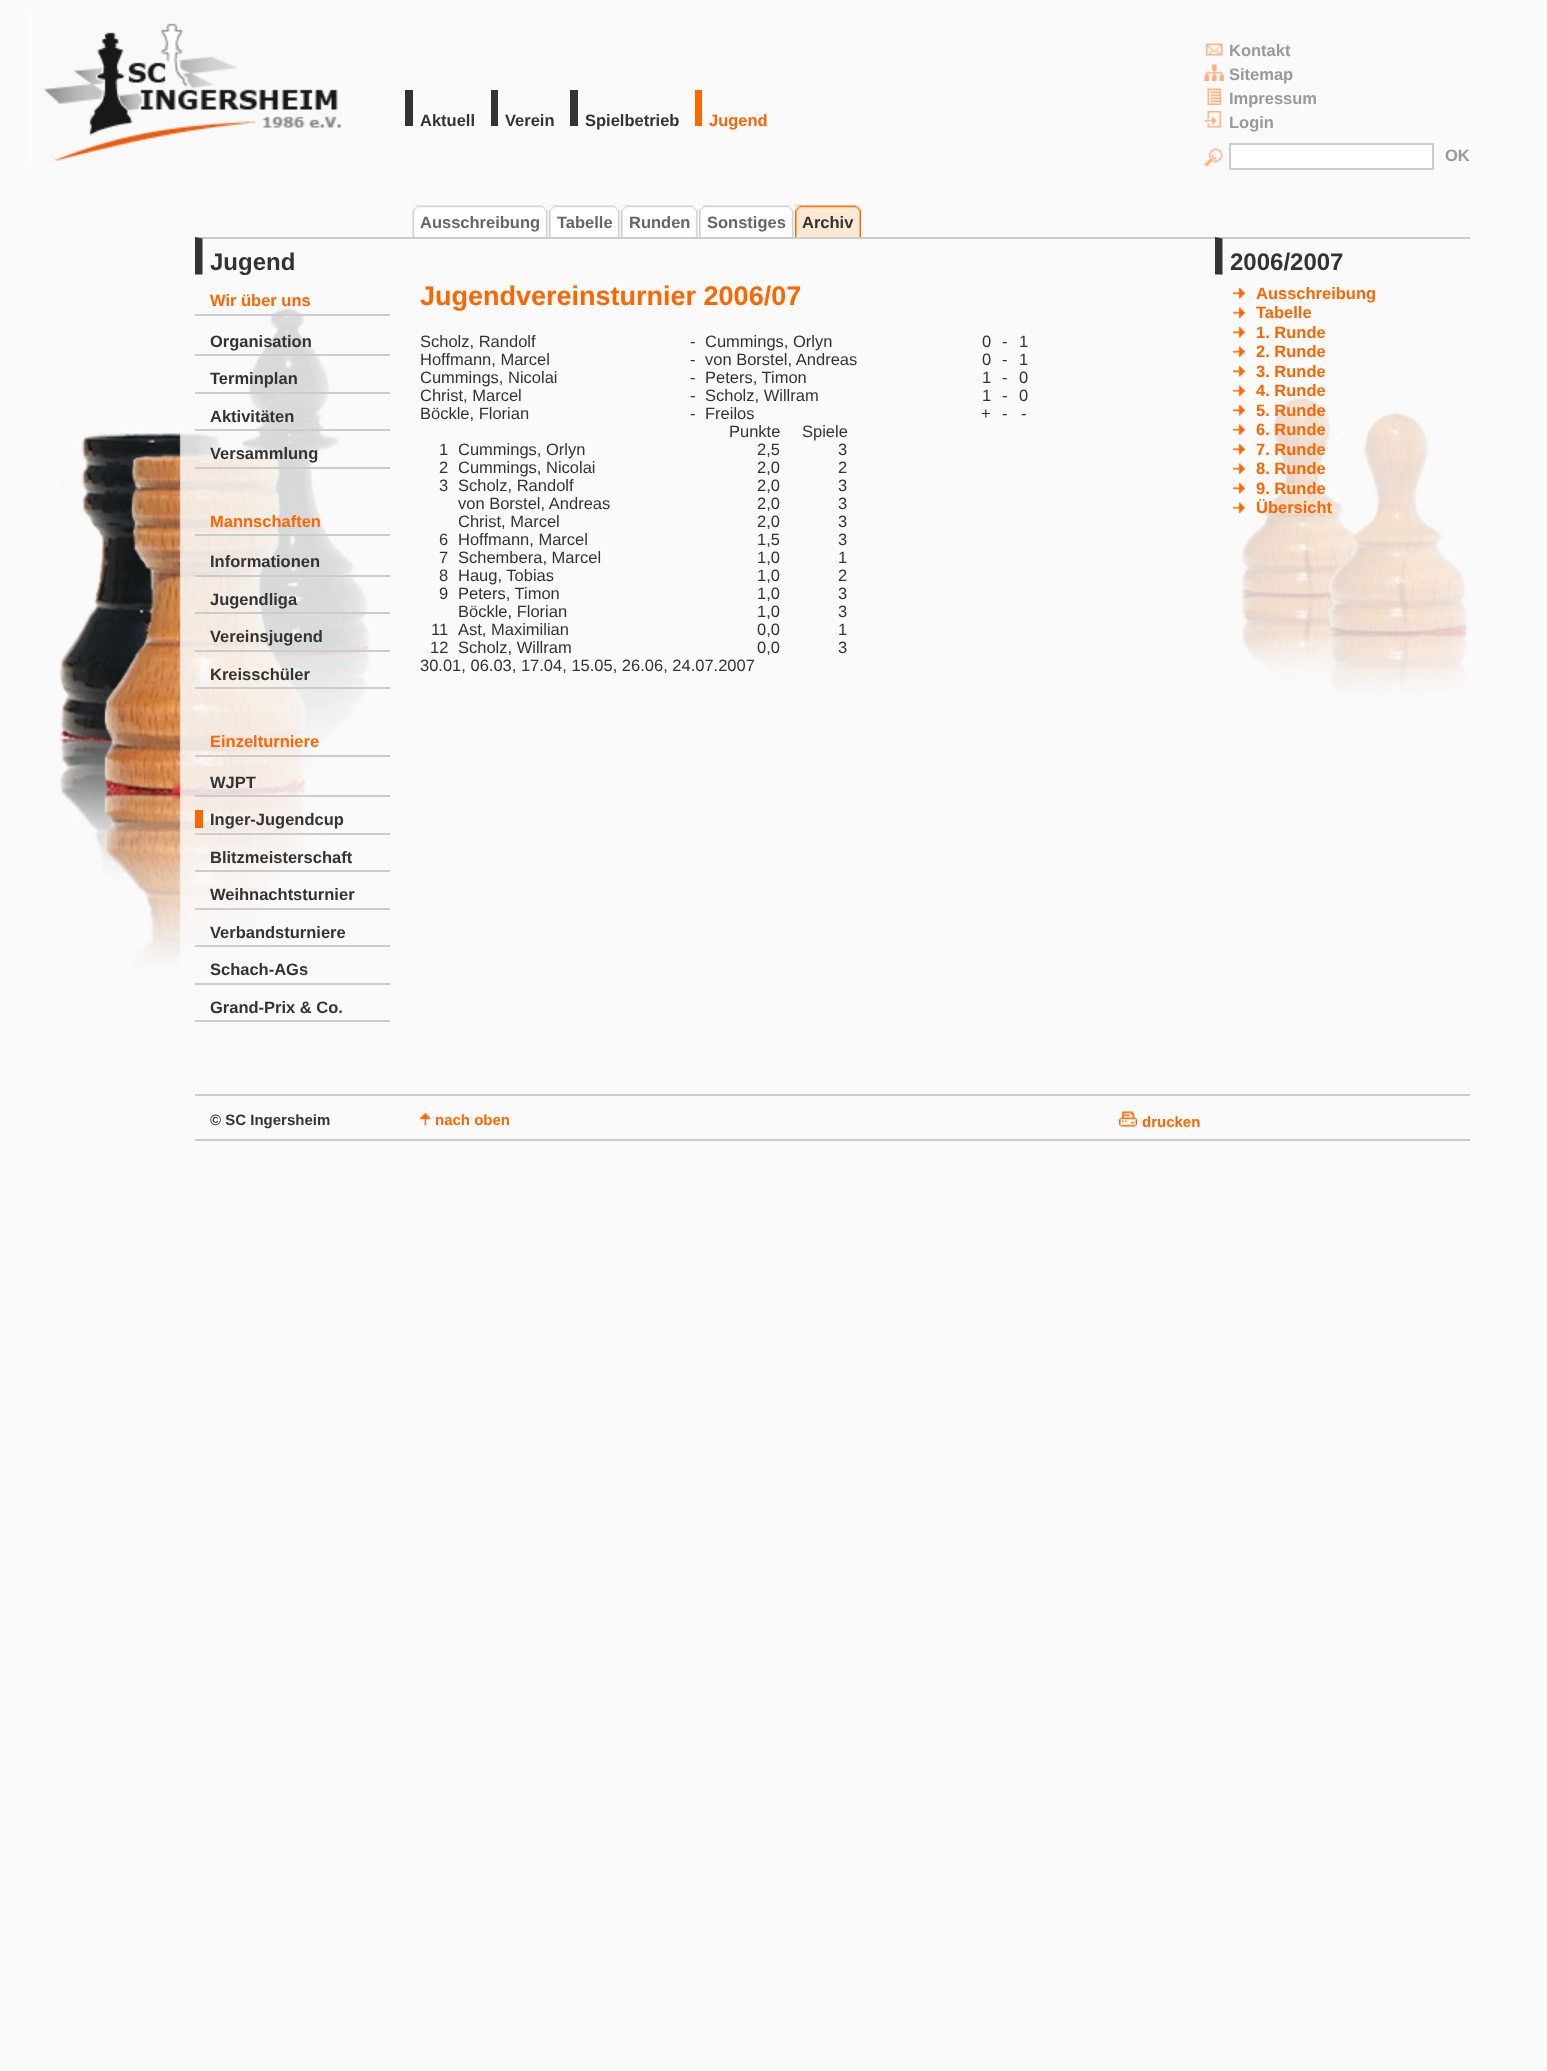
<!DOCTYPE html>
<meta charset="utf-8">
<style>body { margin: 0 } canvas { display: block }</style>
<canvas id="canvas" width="1547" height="2071"></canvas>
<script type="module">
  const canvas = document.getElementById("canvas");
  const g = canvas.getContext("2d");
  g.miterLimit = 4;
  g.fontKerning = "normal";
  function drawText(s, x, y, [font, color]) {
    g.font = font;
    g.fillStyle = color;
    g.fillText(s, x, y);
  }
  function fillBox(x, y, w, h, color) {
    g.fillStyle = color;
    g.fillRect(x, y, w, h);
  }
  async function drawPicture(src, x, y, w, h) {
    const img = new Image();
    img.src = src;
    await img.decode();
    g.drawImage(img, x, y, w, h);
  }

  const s1 = ["bold 16.5px Liberation Sans", "#333333"];
  const s2 = ["bold 16.5px Liberation Sans", "#FF6600"];
  const s3 = ["bold 16.5px Liberation Sans", "#999999"];
  const s4 = ["bold 16.5px Liberation Sans", "#666666"];
  const s5 = ["bold 24px Liberation Sans", "#333333"];
  const s6 = ["bold 27px Liberation Sans", "#FF6600"];
  const s7 = ["16.5px Liberation Sans", "#333333"];
  const s8 = ["bold 15px Liberation Sans", "#333333"];
  const s9 = ["bold 15px Liberation Sans", "#FF6600"];

  fillBox(0, 0, 1547, 2071, "#FAFAFA");
  await drawPicture("pic1.png", 30, 12, 312, 150);
  fillBox(405, 90, 8, 36, "#333333");
  drawText("Aktuell", 420, 126, s1);
  fillBox(491, 90, 7, 36, "#333333");
  drawText("Verein", 505, 126, s1);
  fillBox(570, 90, 8, 36, "#333333");
  drawText("Spielbetrieb", 585, 126, s1);
  fillBox(695, 90, 7, 36, "#FF6600");
  drawText("Jugend", 709, 126, s2);
  await drawPicture("pic2.png", 1205, 43, 18, 13);
  drawText("Kontakt", 1229, 56, s3);
  await drawPicture("pic3.png", 1204, 64, 20, 17);
  drawText("Sitemap", 1229, 80, s3);
  await drawPicture("pic4.png", 1207, 88, 15, 17);
  drawText("Impressum", 1229, 104, s3);
  await drawPicture("pic5.png", 1204, 111, 18, 17);
  drawText("Login", 1229, 128, s3);
  await drawPicture("pic6.png", 1204, 148, 19, 19);
  g.fillStyle = "#FFFFFF";
  g.beginPath();
  g.rect(1230, 144, 203, 25);
  g.fill();
  g.strokeStyle = "#CCCCCC";
  g.lineWidth = 2;
  g.stroke();
  drawText("OK", 1445, 161, s3);
  await drawPicture("pic7.png", 60, 308, 310, 662);
  fillBox(195, 237, 1275, 2, "#CCCCCC");
  await drawPicture("pic8.png", 412, 205, 136, 32);
  await drawPicture("pic9.png", 412, 205, 7, 32);
  drawText("Ausschreibung", 420, 228, s4);
  await drawPicture("pic10.png", 549, 205, 71, 32);
  await drawPicture("pic11.png", 549, 205, 6, 32);
  drawText("Tabelle", 557, 228, s4);
  await drawPicture("pic12.png", 621, 205, 77, 32);
  await drawPicture("pic11.png", 621, 205, 6, 32);
  drawText("Runden", 629, 228, s4);
  await drawPicture("pic13.png", 699, 205, 95, 32);
  await drawPicture("pic11.png", 699, 205, 6, 32);
  drawText("Sonstiges", 707, 228, s4);
  await drawPicture("pic14.png", 795, 205, 66, 32);
  await drawPicture("pic15.png", 795, 205, 6, 32);
  drawText("Archiv", 802, 228, s1);
  g.beginPath();
  g.moveTo(195, 274.5);
  g.lineTo(195, 237);
  g.lineTo(202.5, 238.5);
  g.lineTo(202.5, 274.5);
  g.closePath();
  g.fill();
  drawText("Jugend", 210, 270, s5);
  fillBox(195, 314, 195, 2, "#CCCCCC");
  drawText("Wir über uns", 210, 306, s2);
  fillBox(195, 354, 195, 2, "#CCCCCC");
  drawText("Organisation", 210, 347, s1);
  fillBox(195, 392, 195, 2, "#CCCCCC");
  drawText("Terminplan", 210, 384, s1);
  fillBox(195, 429, 195, 2, "#CCCCCC");
  drawText("Aktivitäten", 210, 422, s1);
  fillBox(195, 467, 195, 2, "#CCCCCC");
  drawText("Versammlung", 210, 459, s1);
  fillBox(195, 534, 195, 2, "#CCCCCC");
  drawText("Mannschaften", 210, 527, s2);
  fillBox(195, 575, 195, 2, "#CCCCCC");
  drawText("Informationen", 210, 567, s1);
  fillBox(195, 612, 195, 2, "#CCCCCC");
  drawText("Jugendliga", 210, 605, s1);
  fillBox(195, 650, 195, 2, "#CCCCCC");
  drawText("Vereinsjugend", 210, 642, s1);
  fillBox(195, 687, 195, 2, "#CCCCCC");
  drawText("Kreisschüler", 210, 680, s1);
  fillBox(195, 755, 195, 2, "#CCCCCC");
  drawText("Einzelturniere", 210, 747, s2);
  fillBox(195, 795, 195, 2, "#CCCCCC");
  drawText("WJPT", 210, 788, s1);
  fillBox(195, 833, 195, 2, "#CCCCCC");
  fillBox(195, 810, 8, 18, "#FF6600");
  drawText("Inger-Jugendcup", 210, 825, s1);
  fillBox(195, 870, 195, 2, "#CCCCCC");
  drawText("Blitzmeisterschaft", 210, 863, s1);
  fillBox(195, 908, 195, 2, "#CCCCCC");
  drawText("Weihnachtsturnier", 210, 900, s1);
  fillBox(195, 945, 195, 2, "#CCCCCC");
  drawText("Verbandsturniere", 210, 938, s1);
  fillBox(195, 983, 195, 2, "#CCCCCC");
  drawText("Schach-AGs", 210, 975, s1);
  fillBox(195, 1020, 195, 2, "#CCCCCC");
  drawText("Grand-Prix & Co.", 210, 1013, s1);
  drawText("Jugendvereinsturnier 2006/07", 420, 305, s6);
  drawText("Scholz, Randolf", 420, 347, s7);
  drawText("-", 690, 347, s7);
  drawText("Cummings, Orlyn", 705, 347, s7);
  drawText("0", 982, 347, s7);
  drawText("-", 1002, 347, s7);
  drawText("1", 1019, 347, s7);
  drawText("Hoffmann, Marcel", 420, 365, s7);
  drawText("-", 690, 365, s7);
  drawText("von Borstel, Andreas", 705, 365, s7);
  drawText("0", 982, 365, s7);
  drawText("-", 1002, 365, s7);
  drawText("1", 1019, 365, s7);
  drawText("Cummings, Nicolai", 420, 383, s7);
  drawText("-", 690, 383, s7);
  drawText("Peters, Timon", 705, 383, s7);
  drawText("1", 982, 383, s7);
  drawText("-", 1002, 383, s7);
  drawText("0", 1019, 383, s7);
  drawText("Christ, Marcel", 420, 401, s7);
  drawText("-", 690, 401, s7);
  drawText("Scholz, Willram", 705, 401, s7);
  drawText("1", 982, 401, s7);
  drawText("-", 1002, 401, s7);
  drawText("0", 1019, 401, s7);
  drawText("Böckle, Florian", 420, 419, s7);
  drawText("-", 690, 419, s7);
  drawText("Freilos", 705, 419, s7);
  drawText("+", 981, 419, s7);
  drawText("-", 1002, 419, s7);
  drawText("-", 1021, 419, s7);
  drawText("Punkte", 729, 437, s7);
  drawText("Spiele", 802, 437, s7);
  drawText("1", 439, 455, s7);
  drawText("Cummings, Orlyn", 458, 455, s7);
  drawText("2,5", 757, 455, s7);
  drawText("3", 838, 455, s7);
  drawText("2", 439, 473, s7);
  drawText("Cummings, Nicolai", 458, 473, s7);
  drawText("2,0", 757, 473, s7);
  drawText("2", 838, 473, s7);
  drawText("3", 439, 491, s7);
  drawText("Scholz, Randolf", 458, 491, s7);
  drawText("2,0", 757, 491, s7);
  drawText("3", 838, 491, s7);
  drawText("von Borstel, Andreas", 458, 509, s7);
  drawText("2,0", 757, 509, s7);
  drawText("3", 838, 509, s7);
  drawText("Christ, Marcel", 458, 527, s7);
  drawText("2,0", 757, 527, s7);
  drawText("3", 838, 527, s7);
  drawText("6", 439, 545, s7);
  drawText("Hoffmann, Marcel", 458, 545, s7);
  drawText("1,5", 757, 545, s7);
  drawText("3", 838, 545, s7);
  drawText("7", 439, 563, s7);
  drawText("Schembera, Marcel", 458, 563, s7);
  drawText("1,0", 757, 563, s7);
  drawText("1", 838, 563, s7);
  drawText("8", 439, 581, s7);
  drawText("Haug, Tobias", 458, 581, s7);
  drawText("1,0", 757, 581, s7);
  drawText("2", 838, 581, s7);
  drawText("9", 439, 599, s7);
  drawText("Peters, Timon", 458, 599, s7);
  drawText("1,0", 757, 599, s7);
  drawText("3", 838, 599, s7);
  drawText("Böckle, Florian", 458, 617, s7);
  drawText("1,0", 757, 617, s7);
  drawText("3", 838, 617, s7);
  drawText("11", 431, 635, s7);
  drawText("Ast, Maximilian", 458, 635, s7);
  drawText("0,0", 757, 635, s7);
  drawText("1", 838, 635, s7);
  drawText("12", 430, 653, s7);
  drawText("Scholz, Willram", 458, 653, s7);
  drawText("0,0", 757, 653, s7);
  drawText("3", 838, 653, s7);
  drawText("30.01, 06.03, 17.04, 15.05, 26.06, 24.07.2007", 420, 671, s7);
  await drawPicture("pic16.png", 1241, 396, 229, 298);
  g.beginPath();
  g.moveTo(1215, 274.5);
  g.lineTo(1215, 237);
  g.lineTo(1222.5, 238.5);
  g.lineTo(1222.5, 274.5);
  g.closePath();
  g.fill();
  drawText("2006/2007", 1230, 270, s5);
  await drawPicture("pic17.png", 1233, 288, 12, 11);
  drawText("Ausschreibung", 1256, 299, s2);
  await drawPicture("pic18.png", 1233, 307, 12, 11);
  drawText("Tabelle", 1256, 318, s2);
  await drawPicture("pic17.png", 1233, 327, 12, 11);
  drawText("1. Runde", 1256, 338, s2);
  await drawPicture("pic18.png", 1233, 346, 12, 11);
  drawText("2. Runde", 1256, 357, s2);
  await drawPicture("pic17.png", 1233, 366, 12, 11);
  drawText("3. Runde", 1256, 377, s2);
  await drawPicture("pic18.png", 1233, 385, 12, 11);
  drawText("4. Runde", 1256, 396, s2);
  await drawPicture("pic17.png", 1233, 405, 12, 11);
  drawText("5. Runde", 1256, 416, s2);
  await drawPicture("pic18.png", 1233, 424, 12, 11);
  drawText("6. Runde", 1256, 435, s2);
  await drawPicture("pic17.png", 1233, 444, 12, 11);
  drawText("7. Runde", 1256, 455, s2);
  await drawPicture("pic18.png", 1233, 463, 12, 11);
  drawText("8. Runde", 1256, 474, s2);
  await drawPicture("pic17.png", 1233, 483, 12, 11);
  drawText("9. Runde", 1256, 494, s2);
  await drawPicture("pic18.png", 1233, 502, 12, 11);
  drawText("Übersicht", 1256, 513, s2);
  fillBox(195, 1094, 1275, 2, "#CCCCCC");
  fillBox(195, 1139, 1275, 2, "#CCCCCC");
  drawText("© SC Ingersheim", 210, 1125, s8);
  await drawPicture("pic19.png", 420, 1113, 11, 12);
  drawText("nach oben", 435, 1125, s9);
  await drawPicture("pic20.png", 1119, 1111, 18, 16);
  drawText("drucken", 1142, 1127, s9);
</script>
